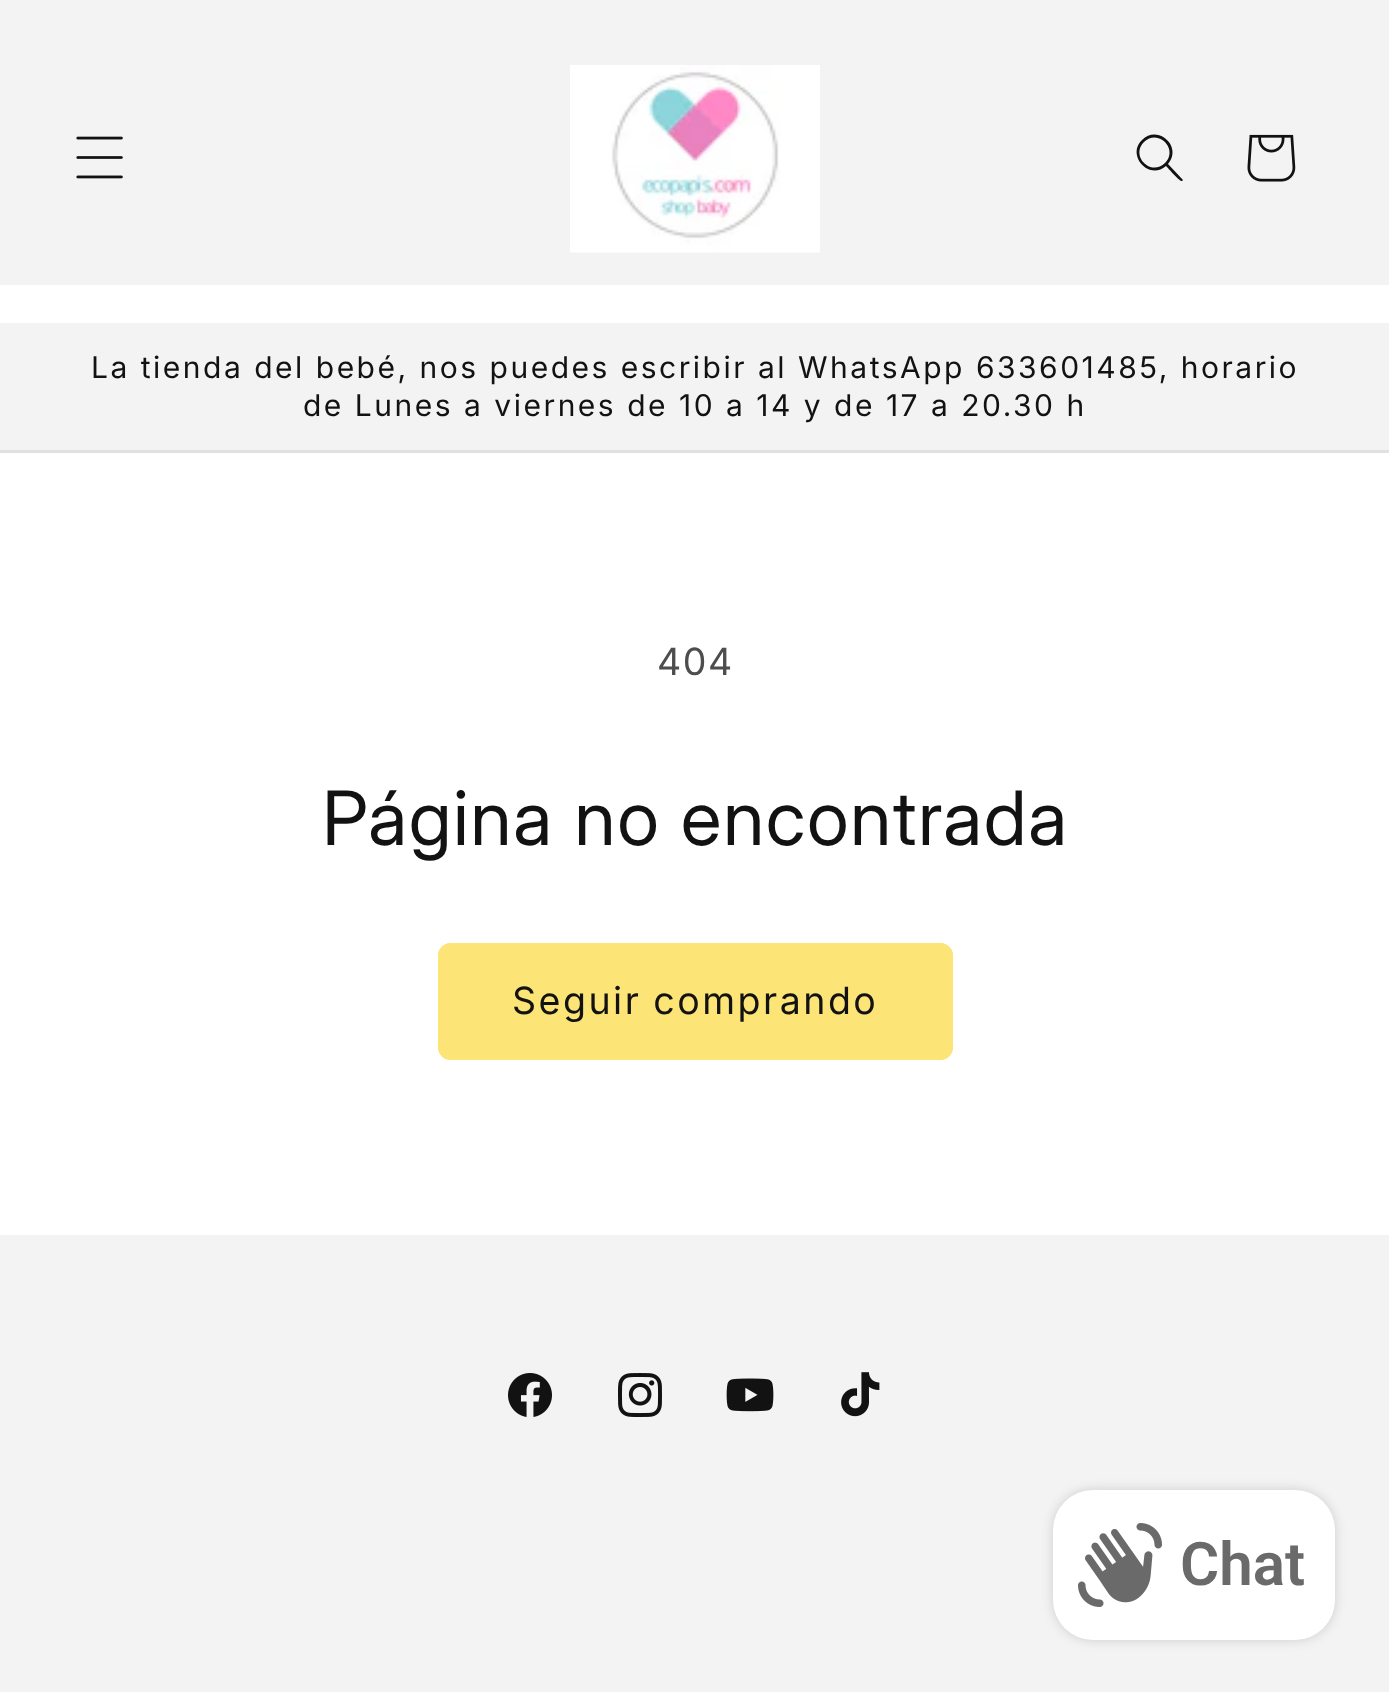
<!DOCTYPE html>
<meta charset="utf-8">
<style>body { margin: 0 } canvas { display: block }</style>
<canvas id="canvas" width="1389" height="1692"></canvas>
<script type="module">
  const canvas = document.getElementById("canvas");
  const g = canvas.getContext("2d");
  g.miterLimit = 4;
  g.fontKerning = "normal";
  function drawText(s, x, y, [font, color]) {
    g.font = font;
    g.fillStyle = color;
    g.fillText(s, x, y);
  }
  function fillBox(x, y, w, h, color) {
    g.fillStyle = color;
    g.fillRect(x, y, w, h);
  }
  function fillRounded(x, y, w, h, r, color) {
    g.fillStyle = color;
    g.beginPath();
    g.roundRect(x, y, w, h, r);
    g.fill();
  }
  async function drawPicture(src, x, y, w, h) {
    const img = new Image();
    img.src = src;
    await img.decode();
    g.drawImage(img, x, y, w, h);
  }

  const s1 = ["30px Inter", "#121212"];
  const s2 = ["37.5px Inter", "#4D4D4D"];
  const s3 = ["75px 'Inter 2'", "#121212"];
  const s4 = ["37.5px Inter", "#121212"];
  const s5 = ["600 60px Roboto", "#6A6A6A"];

  fillBox(0, 0, 1389, 1692, "#FFFFFF");
  fillBox(0, 0, 1389, 285, "#F3F3F3");
  await drawPicture("pic1.png", 76, 136, 47, 43);
  await drawPicture("pic2.png", 570, 65, 250, 188);
  g.fillStyle = "#121212";
  g.beginPath();
  g.moveTo(1165, 163);
  g.bezierCurveTo(1151, 177, 1130, 156, 1144, 142);
  g.bezierCurveTo(1158, 128, 1179, 149, 1165, 163);
  g.closePath();
  g.moveTo(1166, 166);
  g.bezierCurveTo(1149, 181, 1126, 155, 1142, 140);
  g.bezierCurveTo(1158, 124, 1183, 147, 1168, 164);
  g.lineTo(1183, 180);
  g.lineTo(1182, 181);
  g.bezierCurveTo(1180, 182, 1168, 168, 1166, 166);
  g.closePath();
  g.fill("evenodd");
  await drawPicture("pic3.png", 1247, 134, 49, 48);
  fillBox(0, 323, 1389, 127, "#F3F3F3");
  fillBox(0, 450, 1389, 3, "#E1E1E1");
  g.letterSpacing = "2.5px";
  drawText("La tienda del bebé, nos puedes escribir al WhatsApp 633601485, horario", 91, 378, s1);
  drawText("de Lunes a viernes de 10 a 14 y de 17 a 20.30 h", 303, 416, s1);
  g.letterSpacing = "1.5px";
  drawText("404", 657, 675, s2);
  drawText("Página no encontrada", 322, 845, s3);
  fillRounded(438, 943, 515, 117, 13, "#FCE477");
  g.beginPath();
  g.roundRect(439.5, 944.5, 512, 114, 11.5);
  g.strokeStyle = "#FCE477";
  g.lineWidth = 3;
  g.stroke();
  g.letterSpacing = "2.5px";
  g.wordSpacing = "-1px";
  drawText("Seguir comprando", 512, 1014, s4);
  fillBox(0, 1235, 1389, 457, "#F3F3F3");
  await drawPicture("pic4.png", 508, 1373, 44, 44);
  await drawPicture("pic5.png", 618, 1373, 44, 44);
  await drawPicture("pic6.png", 726, 1378, 48, 34);
  await drawPicture("pic7.png", 841, 1372, 39, 45);
  g.fillStyle = "rgba(0, 0, 0, 0.15)";
  g.filter = "blur(6px)";
  g.beginPath();
  g.roundRect(1053, 1490, 282, 150, 40);
  g.fill();
  g.filter = "none";
  fillRounded(1053, 1490, 282, 150, 40, "#FFFFFF");
  await drawPicture("pic8.png", 1078, 1523, 84, 84);
  g.letterSpacing = "0px";
  g.wordSpacing = "0px";
  drawText("Chat", 1180, 1585, s5);
</script>
